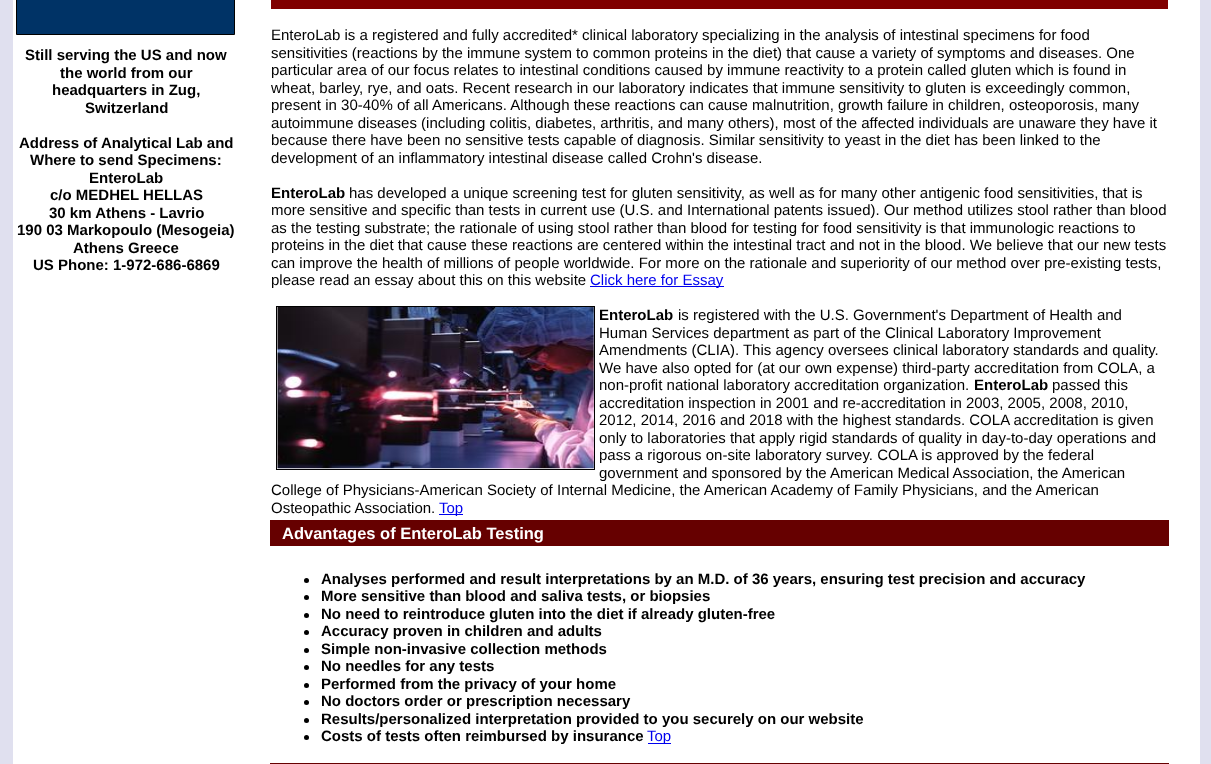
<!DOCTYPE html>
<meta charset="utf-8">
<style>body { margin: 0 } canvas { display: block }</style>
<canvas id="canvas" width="1211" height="764"></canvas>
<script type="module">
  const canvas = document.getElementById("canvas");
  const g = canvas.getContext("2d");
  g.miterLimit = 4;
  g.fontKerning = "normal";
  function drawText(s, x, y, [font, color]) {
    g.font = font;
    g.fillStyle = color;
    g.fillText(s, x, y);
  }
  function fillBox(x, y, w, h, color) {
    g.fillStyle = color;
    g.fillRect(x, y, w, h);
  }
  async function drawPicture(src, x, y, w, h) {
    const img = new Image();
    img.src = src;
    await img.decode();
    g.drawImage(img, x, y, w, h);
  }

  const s1 = ["bold 15px Liberation Sans", "#000000"];
  const s2 = ["15px Liberation Sans", "#000000"];
  const s3 = ["15px Liberation Sans", "#0000EE"];
  const s4 = ["bold 16.5px Liberation Sans", "#FFFFFF"];

  fillBox(0, 0, 1211, 764, "#E0E0EF");
  fillBox(13, 0, 1187, 764, "#FFFFFF");
  g.fillStyle = "#003366";
  g.beginPath();
  g.rect(16.5, -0.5, 218, 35);
  g.fill();
  g.strokeStyle = "#000000";
  g.stroke();
  drawText("Still serving the US and now", 25, 60, s1);
  drawText("the world from our", 60, 78, s1);
  drawText("headquarters in Zug,", 52, 95, s1);
  drawText("Switzerland", 85, 113, s1);
  drawText("Address of Analytical Lab and", 19, 148, s1);
  drawText("Where to send Specimens:", 30, 165, s1);
  drawText("EnteroLab", 89, 183, s1);
  drawText("c/o MEDHEL HELLAS", 50, 200, s1);
  drawText("30 km Athens - Lavrio", 49, 218, s1);
  drawText("190 03 Markopoulo (Mesogeia)", 17, 235, s1);
  drawText("Athens Greece", 73, 253, s1);
  drawText("US Phone: 1-972-686-6869", 33, 270, s1);
  fillBox(271, 0, 897, 9, "#800000");
  drawText("EnteroLab is a registered and fully accredited* clinical laboratory specializing in the analysis of intestinal specimens for food", 271, 40, s2);
  drawText("sensitivities (reactions by the immune system to common proteins in the diet) that cause a variety of symptoms and diseases. One", 271, 58, s2);
  drawText("particular area of our focus relates to intestinal conditions caused by immune reactivity to a protein called gluten which is found in", 271, 75, s2);
  drawText("wheat, barley, rye, and oats. Recent research in our laboratory indicates that immune sensitivity to gluten is exceedingly common,", 271, 93, s2);
  drawText("present in 30-40% of all Americans. Although these reactions can cause malnutrition, growth failure in children, osteoporosis, many", 271, 110, s2);
  drawText("autoimmune diseases (including colitis, diabetes, arthritis, and many others), most of the affected individuals are unaware they have it", 271, 128, s2);
  drawText("because there have been no sensitive tests capable of diagnosis. Similar sensitivity to yeast in the diet has been linked to the", 271, 145, s2);
  drawText("development of an inflammatory intestinal disease called Crohn's disease.", 271, 163, s2);
  drawText("EnteroLab", 271, 198, s1);
  drawText("has developed a unique screening test for gluten sensitivity, as well as for many other antigenic food sensitivities, that is", 349, 198, s2);
  drawText("more sensitive and specific than tests in current use (U.S. and International patents issued). Our method utilizes stool rather than blood", 271, 215, s2);
  drawText("as the testing substrate; the rationale of using stool rather than blood for testing for food sensitivity is that immunologic reactions to", 271, 233, s2);
  drawText("proteins in the diet that cause these reactions are centered within the intestinal tract and not in the blood. We believe that our new tests", 271, 250, s2);
  drawText("can improve the health of millions of people worldwide. For more on the rationale and superiority of our method over pre-existing tests,", 271, 268, s2);
  drawText("please read an essay about this on this website", 271, 285, s2);
  fillBox(590, 286, 134, 1, "#0000EE");
  drawText("Click here for Essay", 590, 285, s3);
  g.strokeRect(276.5, 306.5, 318, 163);
  await drawPicture("pic1.png", 277, 307, 317, 162);
  drawText("EnteroLab", 599, 320, s1);
  drawText("is registered with the U.S. Government's Department of Health and", 678, 320, s2);
  drawText("Human Services department as part of the Clinical Laboratory Improvement", 599, 338, s2);
  drawText("Amendments (CLIA). This agency oversees clinical laboratory standards and quality.", 599, 355, s2);
  drawText("We have also opted for (at our own expense) third-party accreditation from COLA, a", 599, 373, s2);
  drawText("non-profit national laboratory accreditation organization.", 599, 390, s2);
  drawText("EnteroLab", 974, 390, s1);
  drawText("passed this", 1052, 390, s2);
  drawText("accreditation inspection in 2001 and re-accreditation in 2003, 2005, 2008, 2010,", 599, 408, s2);
  drawText("2012, 2014, 2016 and 2018 with the highest standards. COLA accreditation is given", 599, 425, s2);
  drawText("only to laboratories that apply rigid standards of quality in day-to-day operations and", 599, 443, s2);
  drawText("pass a rigorous on-site laboratory survey. COLA is approved by the federal", 599, 460, s2);
  drawText("government and sponsored by the", 599, 478, s2);
  drawText("American Medical Association, the American", 830, 478, s2);
  drawText("College of Physicians-American Society of Internal Medicine, the American Academy of Family Physicians, and the American", 271, 495, s2);
  drawText("Osteopathic Association.", 271, 513, s2);
  fillBox(439, 514, 24, 1, "#0000EE");
  drawText("Top", 439, 513, s3);
  fillBox(270, 520, 899, 26, "#660000");
  drawText("Advantages of EnteroLab Testing", 282, 539, s4);
  g.fillStyle = "#000000";
  g.beginPath();
  g.arc(306.5, 580.5, 2.5, 0, Math.PI * 2);
  g.fill();
  drawText("Analyses performed and result interpretations by an M.D. of 36 years, ensuring test precision and accuracy", 321, 584, s1);
  g.beginPath();
  g.arc(306.5, 597.5, 2.5, 0, Math.PI * 2);
  g.fill();
  drawText("More sensitive than blood and saliva tests, or biopsies", 321, 601, s1);
  g.beginPath();
  g.arc(306.5, 615.5, 2.5, 0, Math.PI * 2);
  g.fill();
  drawText("No need to reintroduce gluten into the diet if already gluten-free", 321, 619, s1);
  g.beginPath();
  g.arc(306.5, 632.5, 2.5, 0, Math.PI * 2);
  g.fill();
  drawText("Accuracy proven in children and adults", 321, 636, s1);
  g.beginPath();
  g.arc(306.5, 650.5, 2.5, 0, Math.PI * 2);
  g.fill();
  drawText("Simple non-invasive collection methods", 321, 654, s1);
  g.beginPath();
  g.arc(306.5, 667.5, 2.5, 0, Math.PI * 2);
  g.fill();
  drawText("No needles for any tests", 321, 671, s1);
  g.beginPath();
  g.arc(306.5, 685.5, 2.5, 0, Math.PI * 2);
  g.fill();
  drawText("Performed from the privacy of your home", 321, 689, s1);
  g.beginPath();
  g.arc(306.5, 702.5, 2.5, 0, Math.PI * 2);
  g.fill();
  drawText("No doctors order or prescription necessary", 321, 706, s1);
  g.beginPath();
  g.arc(306.5, 720.5, 2.5, 0, Math.PI * 2);
  g.fill();
  drawText("Results/personalized interpretation provided to you securely on our website", 321, 724, s1);
  g.beginPath();
  g.arc(306.5, 737.5, 2.5, 0, Math.PI * 2);
  g.fill();
  drawText("Costs of tests often reimbursed by insurance", 321, 741, s1);
  fillBox(648, 743, 23, 1, "#0000EE");
  drawText("Top", 647, 741, s3);
  fillBox(270, 763, 899, 1, "#660000");
</script>
